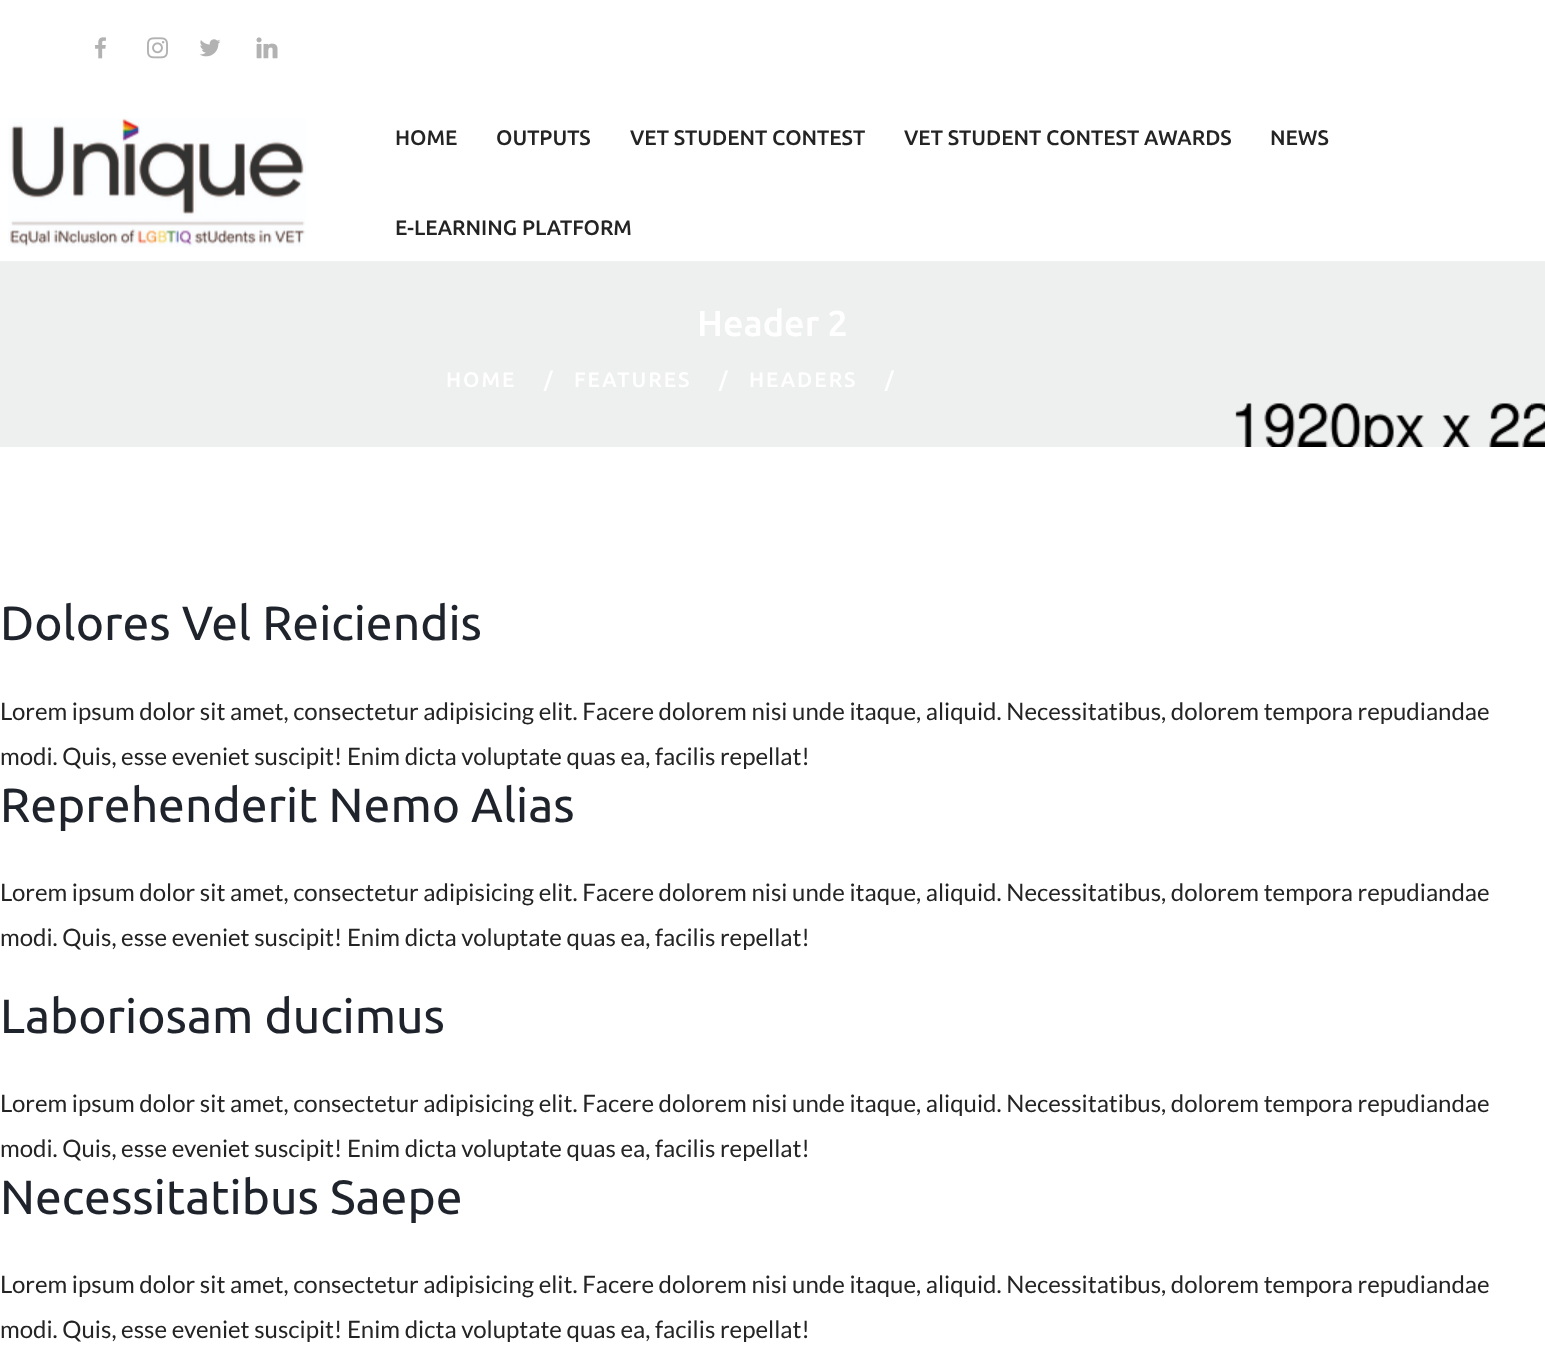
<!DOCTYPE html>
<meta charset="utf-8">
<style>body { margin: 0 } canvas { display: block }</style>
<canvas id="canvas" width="1545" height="1371"></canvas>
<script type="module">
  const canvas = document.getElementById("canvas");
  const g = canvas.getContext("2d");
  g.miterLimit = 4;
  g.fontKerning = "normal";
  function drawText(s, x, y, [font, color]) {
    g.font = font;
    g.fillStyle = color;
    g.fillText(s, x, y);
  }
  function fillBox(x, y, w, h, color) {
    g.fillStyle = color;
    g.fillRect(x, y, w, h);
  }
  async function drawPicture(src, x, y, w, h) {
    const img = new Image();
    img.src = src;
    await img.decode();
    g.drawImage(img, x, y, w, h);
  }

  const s1 = ["500 21px Ubuntu", "#242424"];
  const s2 = ["500 36px Ubuntu", "#FFFFFF"];
  const s3 = ["500 21px Ubuntu", "#FFFFFF"];
  const s4 = ["48px Ubuntu", "#1F232B"];
  const s5 = ["24px Lato", "#242424"];

  fillBox(0, 0, 1545, 1371, "#FFFFFF");
  await drawPicture("pic1.png", 95, 37, 11, 22);
  await drawPicture("pic2.png", 147, 37, 21, 22);
  await drawPicture("pic3.png", 199, 39, 22, 18);
  await drawPicture("pic4.png", 256, 37, 22, 22);
  await drawPicture("pic5.png", 8, 118, 298, 129);
  drawText("HOME", 395, 145, s1);
  drawText("OUTPUTS", 496, 145, s1);
  drawText("VET STUDENT CONTEST", 630, 145, s1);
  drawText("VET STUDENT CONTEST AWARDS", 904, 145, s1);
  drawText("NEWS", 1270, 145, s1);
  drawText("E-LEARNING PLATFORM", 395, 235, s1);
  await drawPicture("pic6.png", 0, 261, 1545, 186);
  drawText("Header 2", 697, 336, s2);
  g.letterSpacing = "2px";
  drawText("HOME", 446, 387, s3);
  drawText("/", 544, 387, s3);
  drawText("FEATURES", 574, 387, s3);
  drawText("/", 719, 387, s3);
  drawText("HEADERS", 749, 387, s3);
  drawText("/", 885, 387, s3);
  g.letterSpacing = "0px";
  drawText("Dolores Vel Reiciendis", 0, 640, s4);
  drawText("Lorem ipsum dolor sit amet, consectetur adipisicing elit. Facere dolorem nisi unde itaque, aliquid. Necessitatibus, dolorem tempora repudiandae", 0, 720, s5);
  drawText("modi. Quis, esse eveniet suscipit! Enim dicta voluptate quas ea, facilis repellat!", 0, 765, s5);
  drawText("Reprehenderit Nemo Alias", 0, 822, s4);
  drawText("Lorem ipsum dolor sit amet, consectetur adipisicing elit. Facere dolorem nisi unde itaque, aliquid. Necessitatibus, dolorem tempora repudiandae", 0, 901, s5);
  drawText("modi. Quis, esse eveniet suscipit! Enim dicta voluptate quas ea, facilis repellat!", 0, 946, s5);
  drawText("Laboriosam ducimus", 0, 1033, s4);
  drawText("Lorem ipsum dolor sit amet, consectetur adipisicing elit. Facere dolorem nisi unde itaque, aliquid. Necessitatibus, dolorem tempora repudiandae", 0, 1112, s5);
  drawText("modi. Quis, esse eveniet suscipit! Enim dicta voluptate quas ea, facilis repellat!", 0, 1157, s5);
  drawText("Necessitatibus Saepe", 0, 1214, s4);
  drawText("Lorem ipsum dolor sit amet, consectetur adipisicing elit. Facere dolorem nisi unde itaque, aliquid. Necessitatibus, dolorem tempora repudiandae", 0, 1293, s5);
  drawText("modi. Quis, esse eveniet suscipit! Enim dicta voluptate quas ea, facilis repellat!", 0, 1338, s5);
</script>
